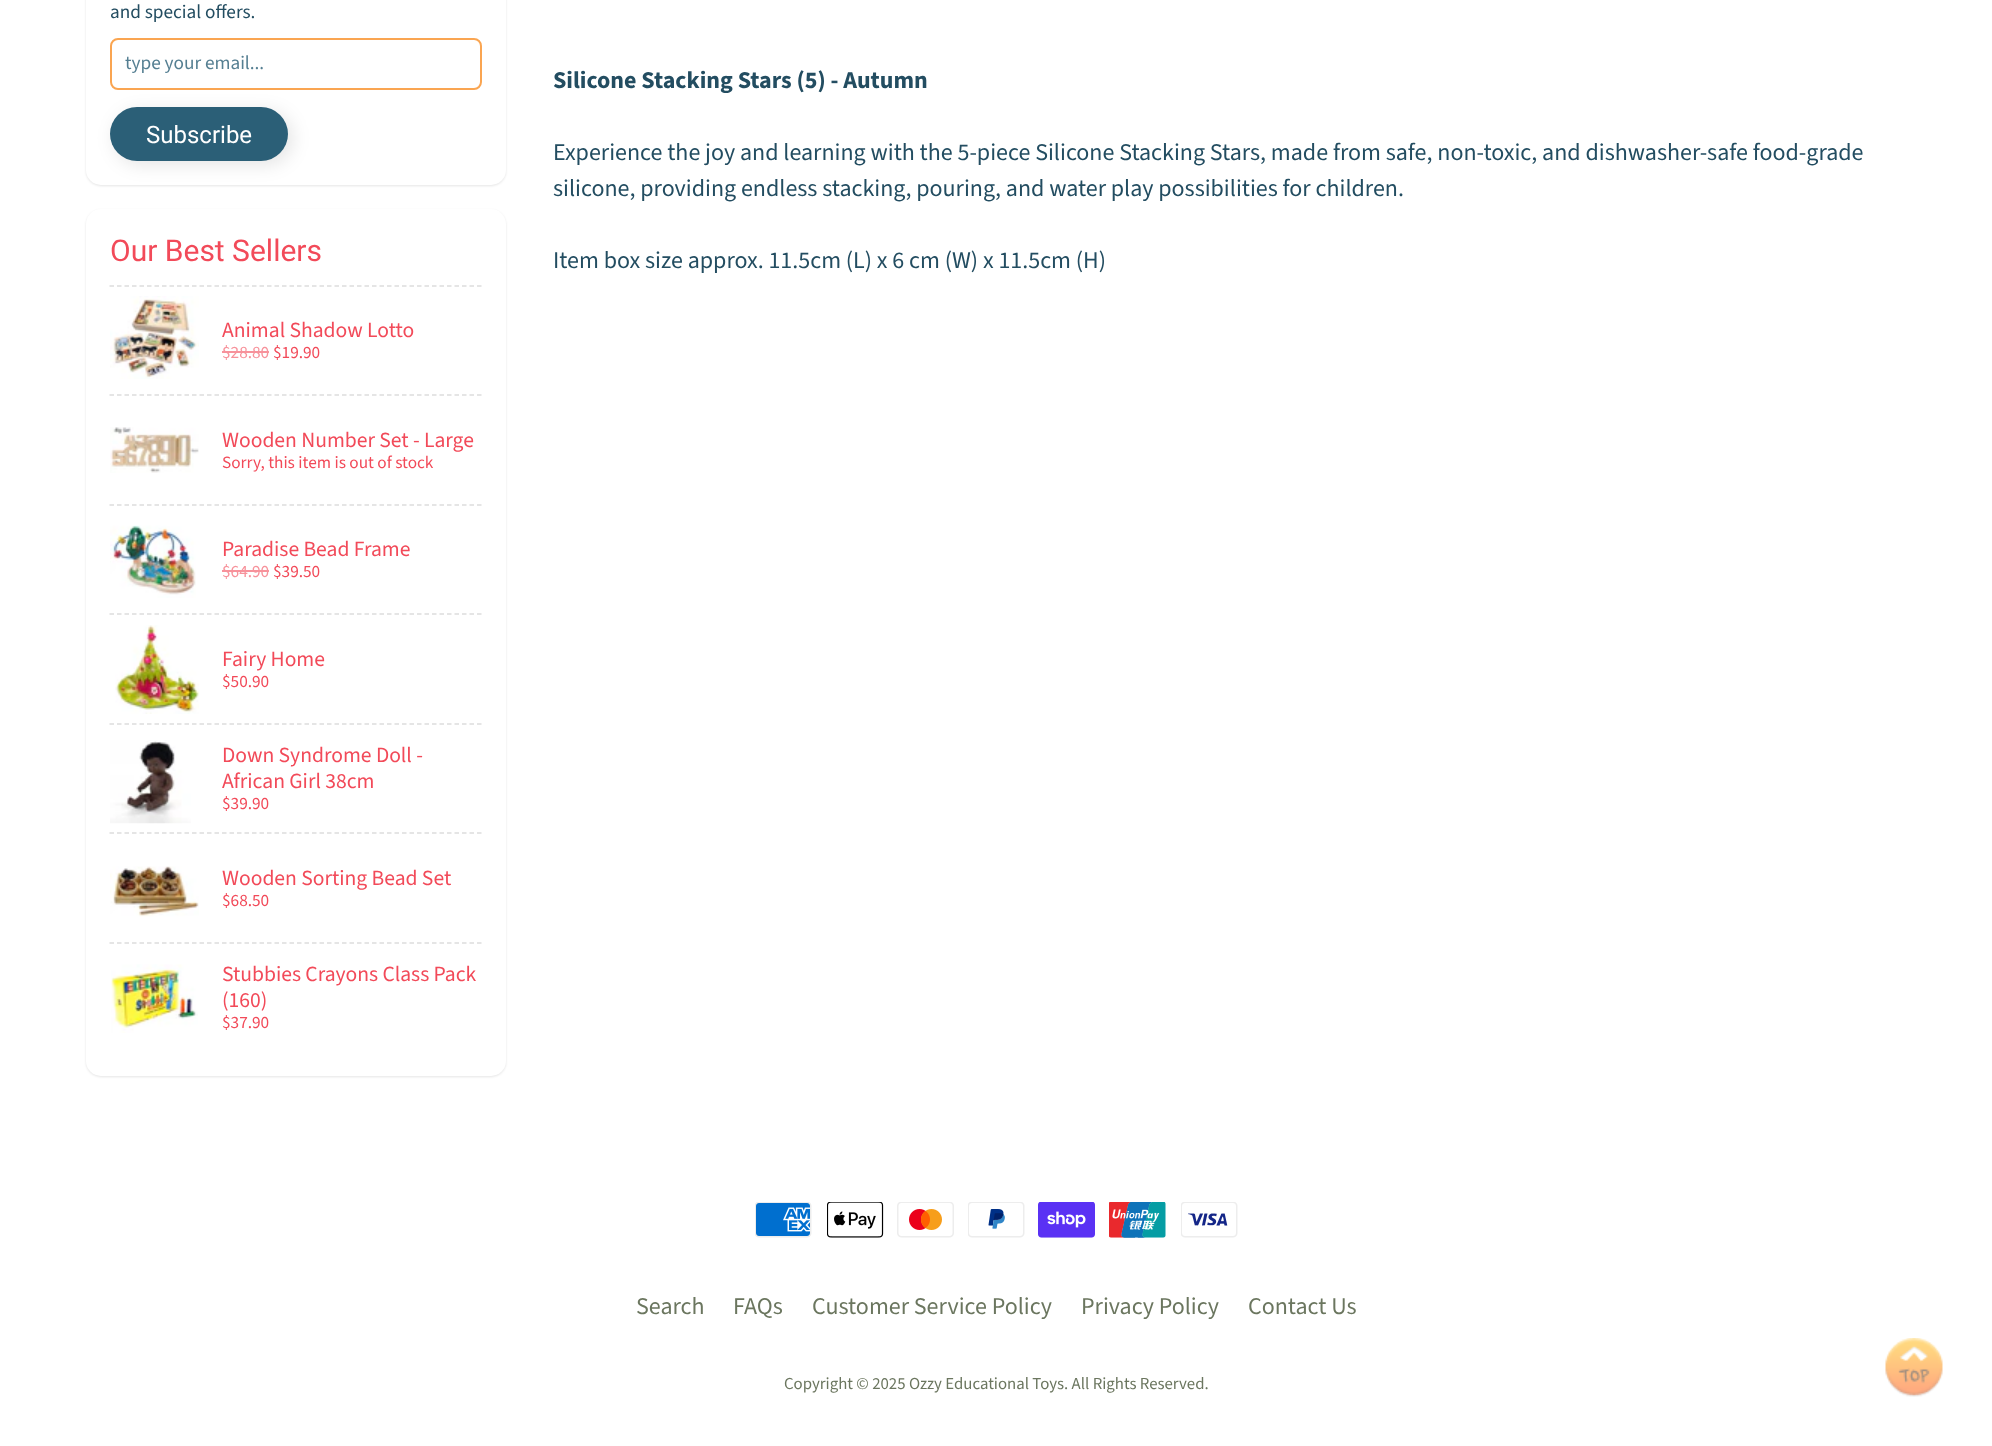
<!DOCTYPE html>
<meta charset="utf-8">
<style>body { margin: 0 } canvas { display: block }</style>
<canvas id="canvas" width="1992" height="1446"></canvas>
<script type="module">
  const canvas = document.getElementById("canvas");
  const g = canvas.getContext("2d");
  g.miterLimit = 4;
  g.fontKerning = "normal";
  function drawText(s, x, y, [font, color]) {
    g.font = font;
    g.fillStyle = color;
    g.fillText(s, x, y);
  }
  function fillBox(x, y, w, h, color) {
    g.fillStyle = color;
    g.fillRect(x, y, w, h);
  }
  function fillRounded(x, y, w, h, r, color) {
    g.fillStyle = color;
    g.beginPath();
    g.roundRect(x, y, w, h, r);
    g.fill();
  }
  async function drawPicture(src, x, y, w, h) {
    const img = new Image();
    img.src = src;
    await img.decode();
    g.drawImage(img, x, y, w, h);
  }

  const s1 = ["19.25px Source Sans Pro", "#234D61"];
  const s2 = ["19.25px Source Sans Pro", "#557F92"];
  const s3 = ["24px Roboto", "#FFFFFF"];
  const s4 = ["30px Roboto", "#F24A59"];
  const s5 = ["21.6px Source Sans Pro", "#F24A59"];
  const s6 = ["17.25px Source Sans Pro", "#F7929B"];
  const s7 = ["17.25px Source Sans Pro", "#F24A59"];
  const s8 = ["bold 24px Source Sans Pro", "#234D61"];
  const s9 = ["24px Source Sans Pro", "#234D61"];
  const s10 = ["24px Source Sans Pro", "#6B765F"];
  const s11 = ["16.8px Source Sans Pro", "#6B765F"];

  fillBox(0, 0, 1992, 1446, "#FFFFFF");
  g.fillStyle = "rgba(0, 0, 0, 0.1)";
  g.filter = "blur(1px)";
  g.beginPath();
  g.roundRect(86, -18, 420, 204, 15);
  g.fill();
  g.filter = "none";
  fillRounded(86, -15, 420, 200, 15, "#FFFFFF");
  drawText("and special offers.", 110, 18, s1);
  g.beginPath();
  g.roundRect(111, 39, 370, 50, 7);
  g.strokeStyle = "#FAA551";
  g.lineWidth = 2;
  g.stroke();
  drawText("type your email...", 125, 69, s2);
  g.fillStyle = "rgba(0, 0, 0, 0.1)";
  g.filter = "blur(9px)";
  g.beginPath();
  g.roundRect(114, 111, 179, 54, 27);
  g.fill();
  g.filter = "none";
  fillRounded(110, 107, 178, 54, 27, "#2B5F77");
  drawText("Subscribe", 146, 143, s3);
  g.fillStyle = "rgba(0, 0, 0, 0.1)";
  g.filter = "blur(1px)";
  g.beginPath();
  g.roundRect(86, 210, 420, 867, 15);
  g.fill();
  g.filter = "none";
  fillRounded(86, 209, 420, 867, 15, "#FFFFFF");
  drawText("Our Best Sellers", 110, 261, s4);
  g.beginPath();
  g.moveTo(109.5, 286);
  g.lineTo(481.5, 286);
  g.strokeStyle = "#DDDDDD";
  g.lineWidth = 1.5;
  g.setLineDash([4.5, 3]);
  g.stroke();
  await drawPicture("pic1.png", 110, 296, 89, 83);
  drawText("Animal Shadow Lotto", 222, 337, s5);
  drawText("$28.80", 222, 358, s6);
  fillBox(222, 351, 47, 2, "#F7929B");
  drawText("$19.90", 273, 358, s7);
  g.beginPath();
  g.moveTo(109.5, 395);
  g.lineTo(481.5, 395);
  g.stroke();
  await drawPicture("pic2.png", 110, 427, 89, 46);
  drawText("Wooden Number Set - Large", 222, 447, s5);
  drawText("Sorry, this item is out of stock", 222, 468, s7);
  g.beginPath();
  g.moveTo(109.5, 505);
  g.lineTo(481.5, 505);
  g.stroke();
  await drawPicture("pic3.png", 110, 525, 86, 73);
  drawText("Paradise Bead Frame", 222, 556, s5);
  drawText("$64.90", 222, 577, s6);
  fillBox(222, 570, 47, 2, "#F7929B");
  drawText("$39.50", 273, 577, s7);
  g.beginPath();
  g.moveTo(109.5, 614);
  g.lineTo(481.5, 614);
  g.stroke();
  await drawPicture("pic4.png", 115, 625, 85, 89);
  drawText("Fairy Home", 222, 666, s5);
  drawText("$50.90", 222, 687, s7);
  g.beginPath();
  g.moveTo(109.5, 724);
  g.lineTo(481.5, 724);
  g.stroke();
  await drawPicture("pic5.png", 110, 740, 81, 84);
  drawText("Down Syndrome Doll -", 222, 762, s5);
  drawText("African Girl 38cm", 222, 788, s5);
  drawText("$39.90", 222, 809, s7);
  g.beginPath();
  g.moveTo(109.5, 833);
  g.lineTo(481.5, 833);
  g.stroke();
  await drawPicture("pic6.png", 110, 866, 89, 51);
  drawText("Wooden Sorting Bead Set", 222, 885, s5);
  drawText("$68.50", 222, 906, s7);
  g.beginPath();
  g.moveTo(109.5, 943);
  g.lineTo(481.5, 943);
  g.stroke();
  await drawPicture("pic7.png", 111, 964, 87, 69);
  drawText("Stubbies Crayons Class Pack", 222, 981, s5);
  drawText("(160)", 222, 1007, s5);
  drawText("$37.90", 222, 1028, s7);
  drawText("Silicone Stacking Stars (5) - Autumn", 553, 88, s8);
  drawText("Experience the joy and learning with the 5-piece Silicone Stacking Stars, made from safe, non-toxic, and dishwasher-safe food-grade", 553, 160, s9);
  drawText("silicone, providing endless stacking, pouring, and water play possibilities for children.", 553, 196, s9);
  drawText("Item box size approx. 11.5cm (L) x 6 cm (W) x 11.5cm (H)", 553, 268, s9);
  await drawPicture("pic8.png", 755, 1202, 57, 36);
  await drawPicture("pic9.png", 827, 1202, 57, 36);
  await drawPicture("pic10.png", 897, 1202, 57, 36);
  await drawPicture("pic11.png", 968, 1202, 57, 36);
  await drawPicture("pic12.png", 1038, 1202, 57, 36);
  await drawPicture("pic13.png", 1109, 1202, 57, 36);
  await drawPicture("pic14.png", 1181, 1202, 57, 36);
  drawText("Search", 636, 1314, s10);
  drawText("FAQs", 733, 1314, s10);
  drawText("Customer Service Policy", 812, 1314, s10);
  drawText("Privacy Policy", 1081, 1314, s10);
  drawText("Contact Us", 1248, 1314, s10);
  drawText("Copyright © 2025 Ozzy Educational Toys. All Rights Reserved.", 784, 1389, s11);
  await drawPicture("pic15.png", 1885, 1338, 58, 59);
</script>
